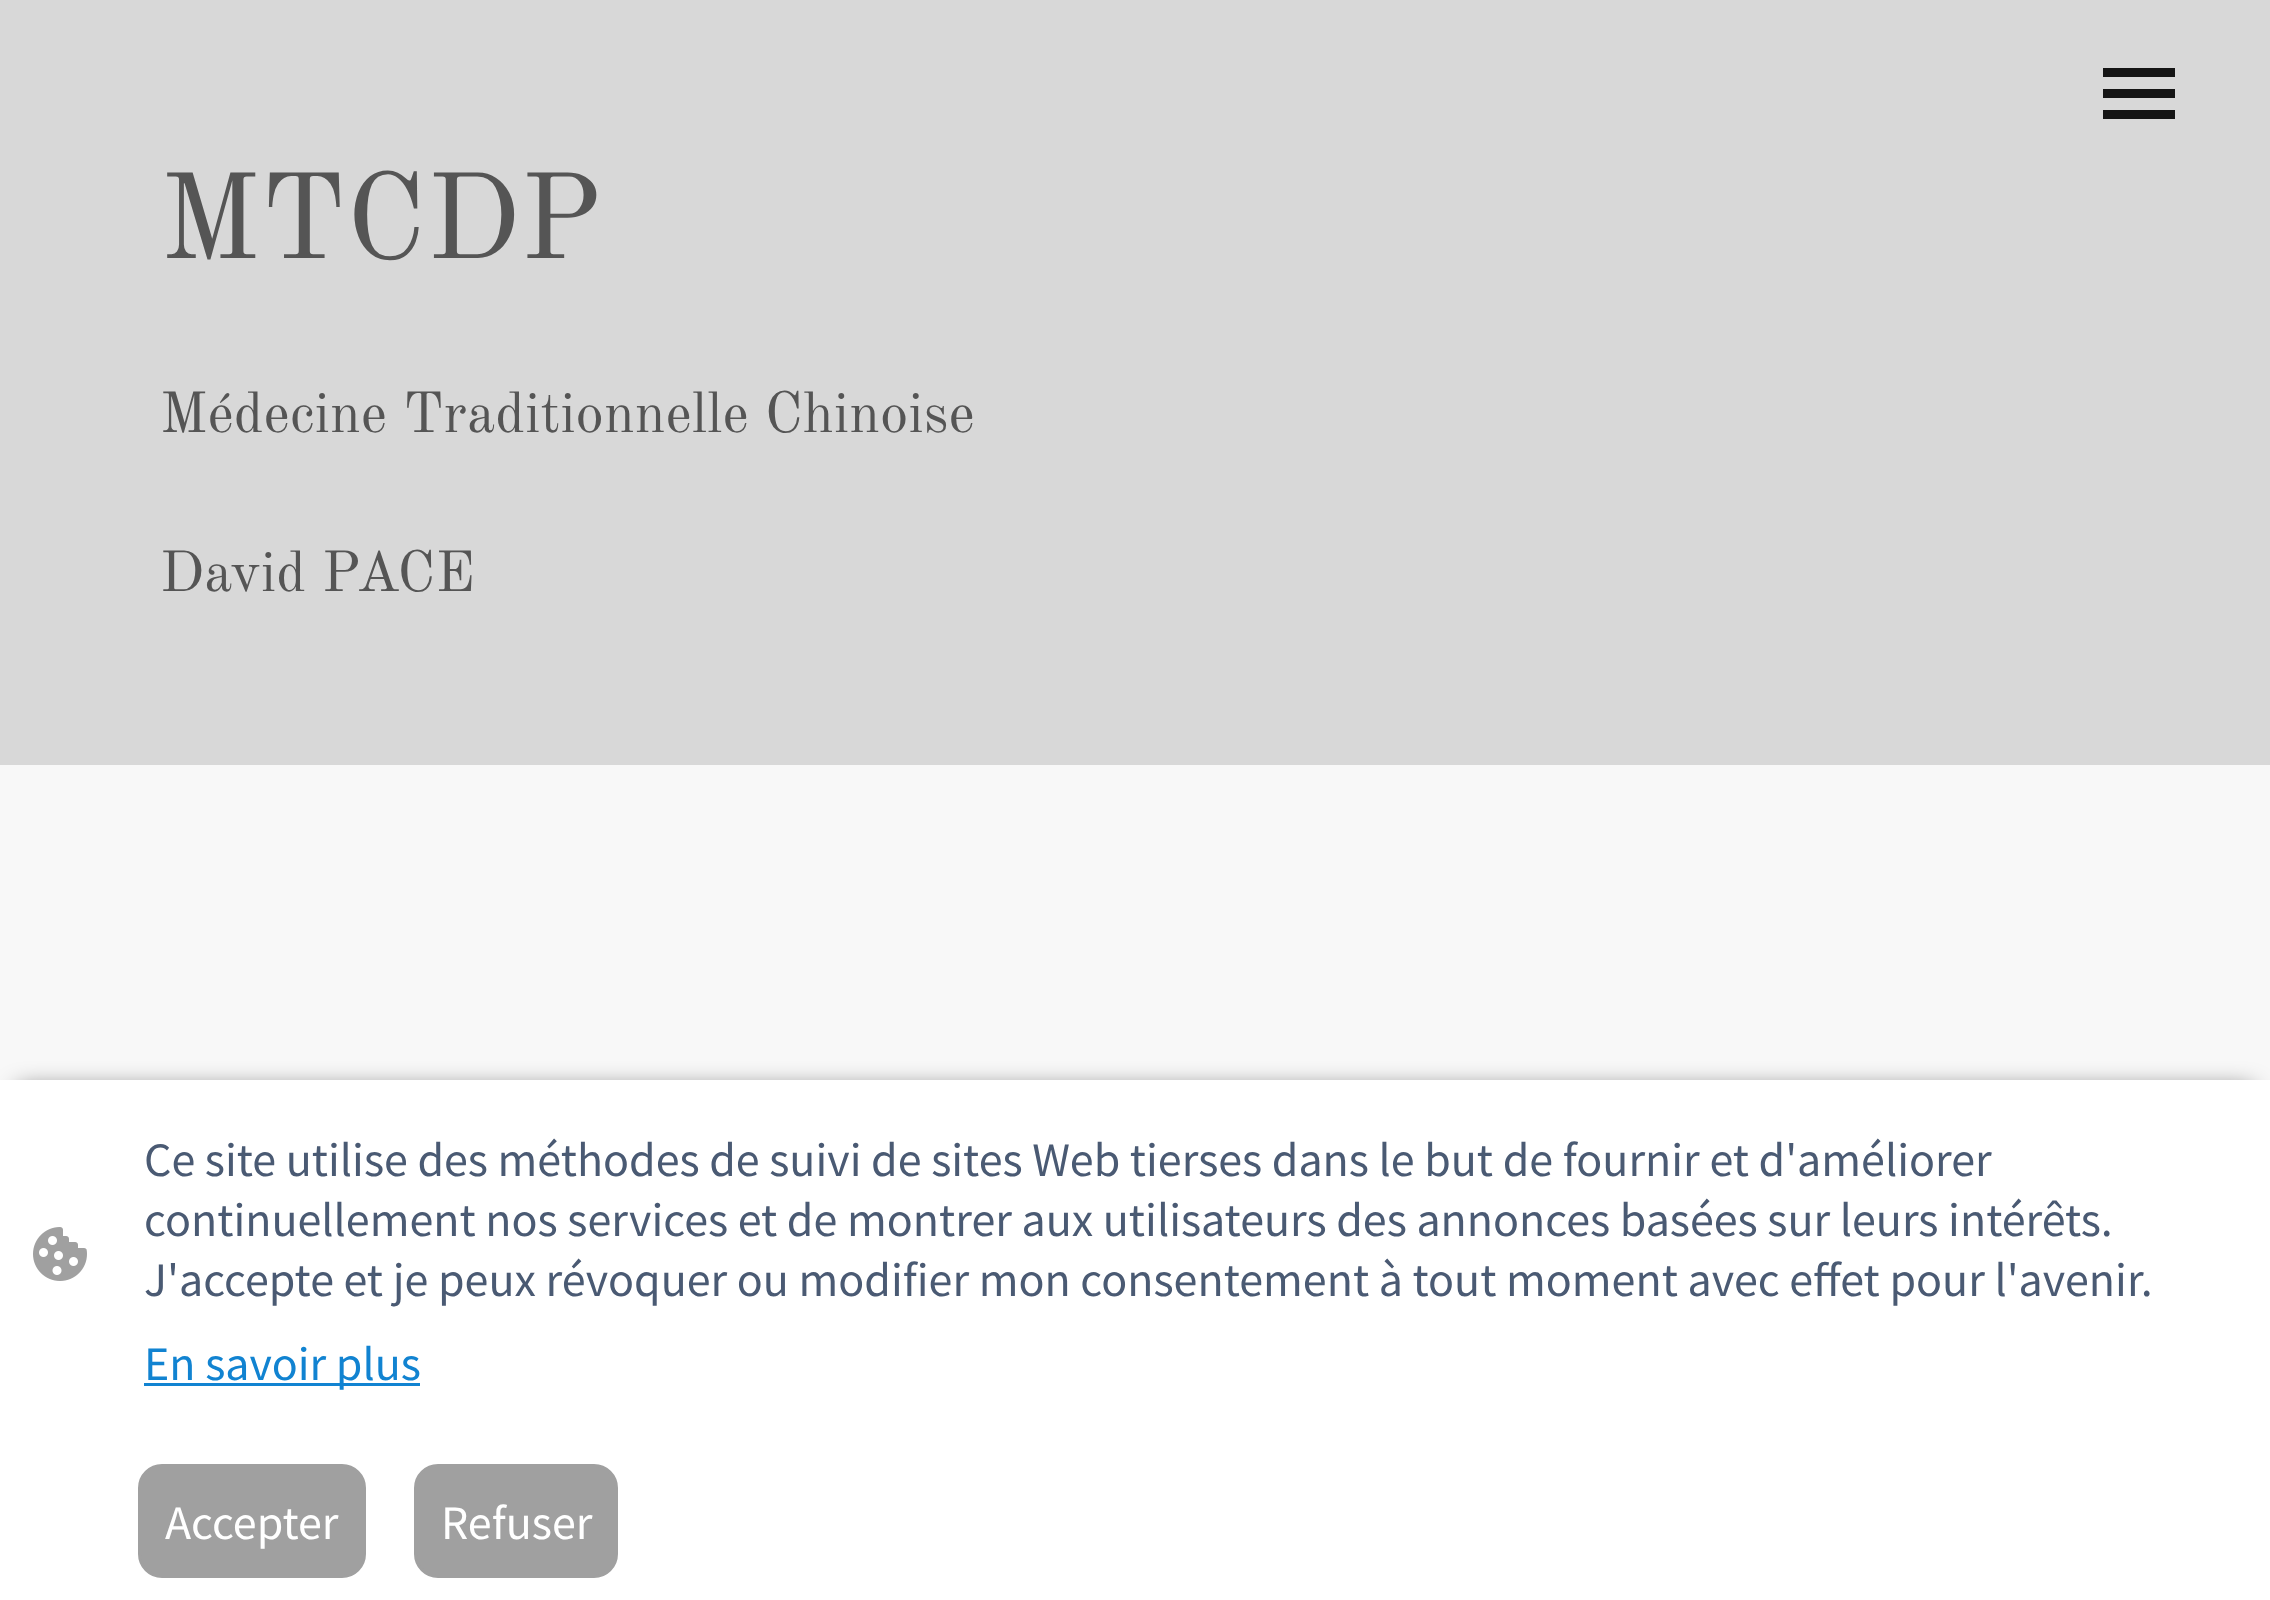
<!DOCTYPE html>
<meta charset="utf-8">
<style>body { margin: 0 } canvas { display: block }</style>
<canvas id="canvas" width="2270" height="1600"></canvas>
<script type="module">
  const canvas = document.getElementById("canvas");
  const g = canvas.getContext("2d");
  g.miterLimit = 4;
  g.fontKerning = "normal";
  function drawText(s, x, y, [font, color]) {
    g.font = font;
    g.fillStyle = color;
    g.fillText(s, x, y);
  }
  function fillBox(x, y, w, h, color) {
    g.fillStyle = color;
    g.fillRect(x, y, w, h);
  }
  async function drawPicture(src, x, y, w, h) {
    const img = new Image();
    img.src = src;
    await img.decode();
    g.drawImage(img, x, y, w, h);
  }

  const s1 = ["48px Source Sans Pro", "#4A5A73"];
  const s2 = ["48px Source Sans Pro", "#1183D1"];
  const s3 = ["48px Source Sans Pro", "#FFFFFF"];

  fillBox(0, 0, 2270, 1600, "#D8D8D8");
  fillBox(2103, 68, 72, 9, "#151515");
  fillBox(2103, 89, 72, 9, "#151515");
  fillBox(2103, 110, 72, 9, "#151515");
  await drawPicture("pic1.png", 163, 170, 810, 422);
  fillBox(0, 765, 2270, 315, "#F8F8F8");
  g.fillStyle = "rgba(0, 0, 0, 0.63)";
  g.filter = "blur(12px)";
  g.beginPath();
  g.rect(18, 1089, 2235, 486);
  g.fill();
  g.filter = "none";
  fillBox(0, 1080, 2270, 520, "#FFFFFF");
  await drawPicture("pic2.png", 33, 1227, 54, 54);
  drawText("Ce site utilise des méthodes de suivi de sites Web tierses dans le but de fournir et d'améliorer", 144, 1176, s1);
  drawText("continuellement nos services et de montrer aux utilisateurs des annonces basées sur leurs intérêts.", 144, 1236, s1);
  drawText("J'accepte et je peux révoquer ou modifier mon consentement à tout moment avec effet pour l'avenir.", 144, 1296, s1);
  fillBox(144, 1383, 276, 3, "#1183D1");
  drawText("En savoir plus", 144, 1380, s2);
  g.fillStyle = "#A0A0A0";
  g.beginPath();
  g.roundRect(139.5, 1465.5, 225, 111, 22.5);
  g.fill();
  g.strokeStyle = "#A0A0A0";
  g.lineWidth = 3;
  g.stroke();
  drawText("Accepter", 165, 1539, s3);
  g.fillStyle = "#A0A0A0";
  g.beginPath();
  g.roundRect(415.5, 1465.5, 201, 111, 22.5);
  g.fill();
  g.stroke();
  drawText("Refuser", 441, 1539, s3);
</script>
